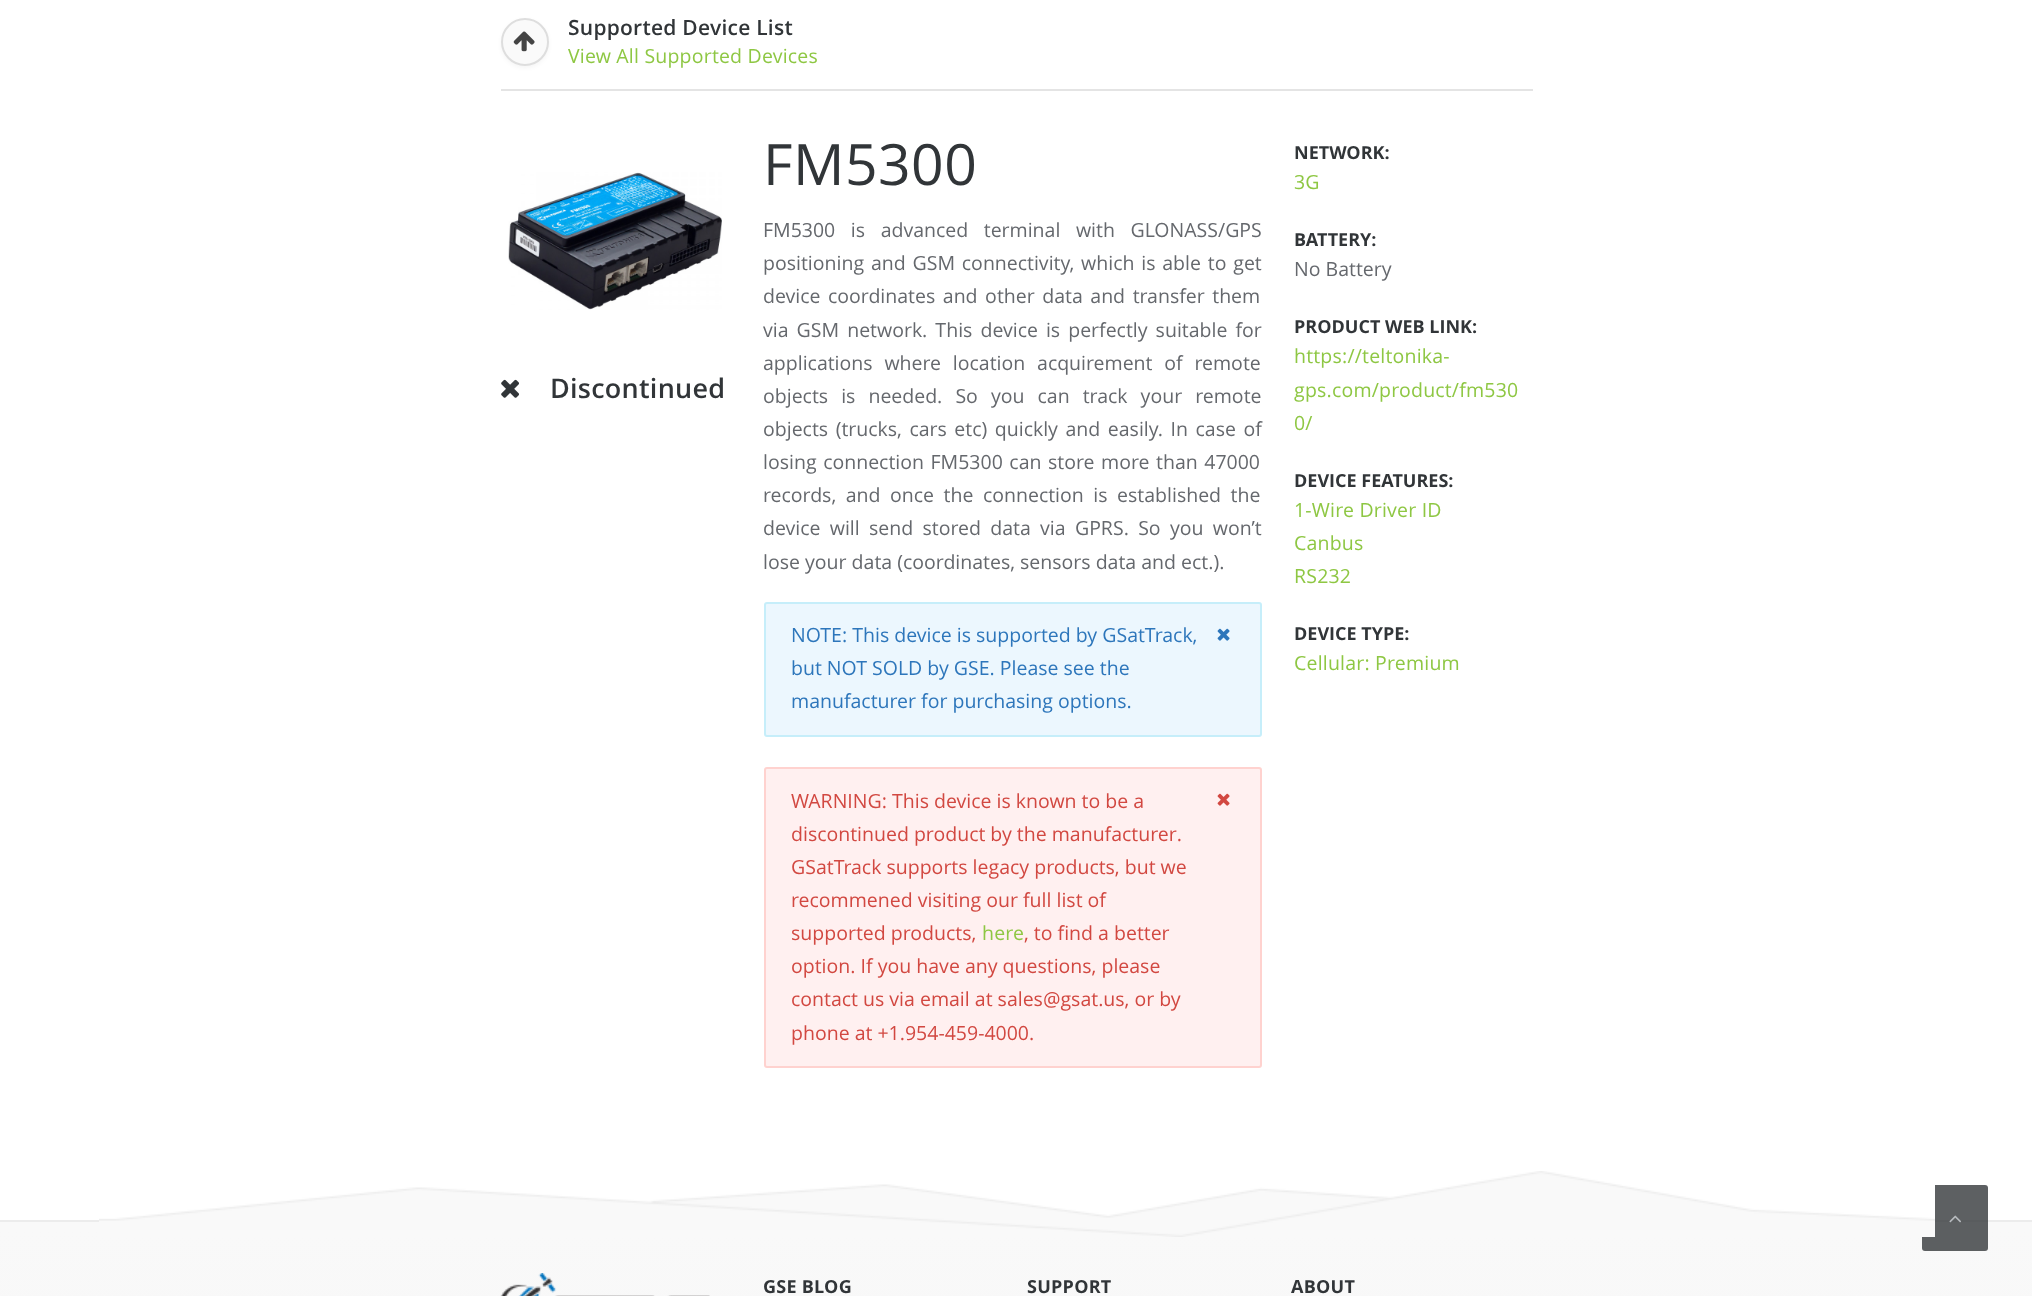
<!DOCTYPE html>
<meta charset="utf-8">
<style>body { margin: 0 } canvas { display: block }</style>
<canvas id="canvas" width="2032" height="1296"></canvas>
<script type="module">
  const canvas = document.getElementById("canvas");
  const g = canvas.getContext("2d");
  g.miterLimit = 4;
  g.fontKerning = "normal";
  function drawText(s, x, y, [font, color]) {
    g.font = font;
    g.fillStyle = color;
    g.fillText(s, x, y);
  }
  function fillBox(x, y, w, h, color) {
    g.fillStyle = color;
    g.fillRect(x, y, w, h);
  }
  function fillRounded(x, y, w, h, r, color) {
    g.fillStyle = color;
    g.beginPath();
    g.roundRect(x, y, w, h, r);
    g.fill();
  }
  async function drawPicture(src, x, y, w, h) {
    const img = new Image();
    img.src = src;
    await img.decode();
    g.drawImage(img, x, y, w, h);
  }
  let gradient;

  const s1 = ["600 21px Open Sans", "#313538"];
  const s2 = ["19.5px Open Sans", "#8EC743"];
  const s3 = ["600 27px Open Sans", "#313538"];
  const s4 = ["57px Open Sans", "#313538"];
  const s5 = ["19.5px Open Sans", "#65686D"];
  const s6 = ["19.5px Open Sans", "#2D76BB"];
  const s7 = ["19.5px Open Sans", "#D24841"];
  const s8 = ["bold 18px Open Sans", "#313538"];

  fillBox(0, 0, 2032, 1296, "#FFFFFF");
  fillBox(501, 89, 1032, 2, "#E4E4E4");
  g.letterSpacing = "0.25px";
  drawText("Supported Device List", 568, 35, s1);
  g.fillStyle = "rgba(0, 0, 0, 0.04)";
  g.filter = "blur(2px)";
  g.beginPath();
  g.roundRect(501, 20, 48, 48, 24);
  g.fill();
  g.filter = "none";
  g.fillStyle = "#FAFAFA";
  g.beginPath();
  g.arc(525, 42, 23, 0, Math.PI * 2);
  g.fill();
  g.strokeStyle = "#DEDEDE";
  g.lineWidth = 2;
  g.stroke();
  await drawPicture("pic1.png", 513, 31, 22, 21);
  g.letterSpacing = "0.2px";
  drawText("View All Supported Devices", 568, 63, s2);
  await drawPicture("pic2.png", 508, 172, 214, 138);
  await drawPicture("pic3.png", 501, 379, 18, 19);
  g.letterSpacing = "0.25px";
  drawText("Discontinued", 550, 398, s3);
  g.letterSpacing = "0.5px";
  drawText("FM5300", 763, 185, s4);
  g.letterSpacing = "0px";
  g.wordSpacing = "10.5px";
  drawText("FM5300 is advanced terminal with GLONASS/GPS", 763, 237, s5);
  g.wordSpacing = "1.75px";
  drawText("positioning and GSM connectivity, which is able to get", 763, 270, s5);
  g.wordSpacing = "2.5px";
  drawText("device coordinates and other data and transfer them", 763, 303, s5);
  g.wordSpacing = "3px";
  drawText("via GSM network. This device is perfectly suitable for", 763, 337, s5);
  g.wordSpacing = "6.75px";
  drawText("applications where location acquirement of remote", 763, 370, s5);
  g.wordSpacing = "8px";
  drawText("objects is needed. So you can track your remote", 763, 403, s5);
  g.wordSpacing = "2.5px";
  drawText("objects (trucks, cars etc) quickly and easily. In case of", 763, 436, s5);
  g.wordSpacing = "1.5px";
  drawText("losing connection FM5300 can store more than 47000", 763, 469, s5);
  g.wordSpacing = "4.5px";
  drawText("records, and once the connection is established the", 763, 502, s5);
  g.wordSpacing = "4.25px";
  drawText("device will send stored data via GPRS. So you won’t", 763, 535, s5);
  g.wordSpacing = "0px";
  drawText("lose your data (coordinates, sensors data and ect.).", 763, 569, s5);
  g.fillStyle = "#ECF7FE";
  g.beginPath();
  g.roundRect(765, 603, 496, 133, 2);
  g.fill();
  g.strokeStyle = "#C6EEFA";
  g.stroke();
  drawText("NOTE: This device is supported by GSatTrack,", 791, 642, s6);
  await drawPicture("pic4.png", 1217, 628, 13, 13);
  drawText("but NOT SOLD by GSE. Please see the", 791, 675, s6);
  drawText("manufacturer for purchasing options.", 791, 708, s6);
  g.fillStyle = "#FFF0F0";
  g.beginPath();
  g.roundRect(765, 768, 496, 299, 2);
  g.fill();
  g.strokeStyle = "#FFD2CF";
  g.stroke();
  drawText("WARNING: This device is known to be a", 791, 808, s7);
  await drawPicture("pic5.png", 1217, 793, 13, 13);
  drawText("discontinued product by the manufacturer.", 791, 841, s7);
  drawText("GSatTrack supports legacy products, but we", 791, 874, s7);
  drawText("recommened visiting our full list of", 791, 907, s7);
  drawText("supported products,", 791, 940, s7);
  g.letterSpacing = "0.2px";
  drawText("here", 982, 940, s2);
  g.letterSpacing = "0px";
  drawText(", to find a better", 1024, 940, s7);
  drawText("option. If you have any questions, please", 791, 973, s7);
  drawText("contact us via email at sales@gsat.us, or by", 791, 1006, s7);
  drawText("phone at +1.954-459-4000.", 791, 1040, s7);
  drawText("NETWORK:", 1294, 159, s8);
  g.letterSpacing = "0.2px";
  drawText("3G", 1294, 189, s2);
  g.letterSpacing = "0px";
  drawText("BATTERY:", 1294, 246, s8);
  drawText("No Battery", 1294, 276, s5);
  drawText("PRODUCT WEB LINK:", 1294, 333, s8);
  g.letterSpacing = "0.2px";
  drawText("https://teltonika-", 1294, 363, s2);
  drawText("gps.com/product/fm530", 1294, 397, s2);
  drawText("0/", 1294, 430, s2);
  g.letterSpacing = "0px";
  drawText("DEVICE FEATURES:", 1294, 487, s8);
  g.letterSpacing = "0.2px";
  drawText("1-Wire Driver ID", 1294, 517, s2);
  drawText("Canbus", 1294, 550, s2);
  drawText("RS232", 1294, 583, s2);
  g.letterSpacing = "0px";
  drawText("DEVICE TYPE:", 1294, 640, s8);
  g.letterSpacing = "0.2px";
  drawText("Cellular: Premium", 1294, 670, s2);
  gradient = g.createLinearGradient(1016, 1221, 1016, 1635);
  gradient.addColorStop(0.02, "#F9F9F9");
  gradient.addColorStop(1, "#F5F5F5");
  g.fillStyle = gradient;
  g.fillRect(0, 1222, 2032, 74);
  fillBox(0, 1220, 2032, 2, "#ECECEC");
  fillRounded(1922, 1185, 66, 66, 3, "rgba(52, 56, 59, 0.8)");
  await drawPicture("pic6.png", 99, 1171, 1836, 66);
  await drawPicture("pic7.png", 500, 1273, 210, 23);
  g.letterSpacing = "0.25px";
  drawText("GSE BLOG", 763, 1293, s8);
  drawText("SUPPORT", 1027, 1293, s8);
  drawText("ABOUT", 1291, 1293, s8);
  await drawPicture("pic8.png", 1949, 1215, 12, 8);
</script>
